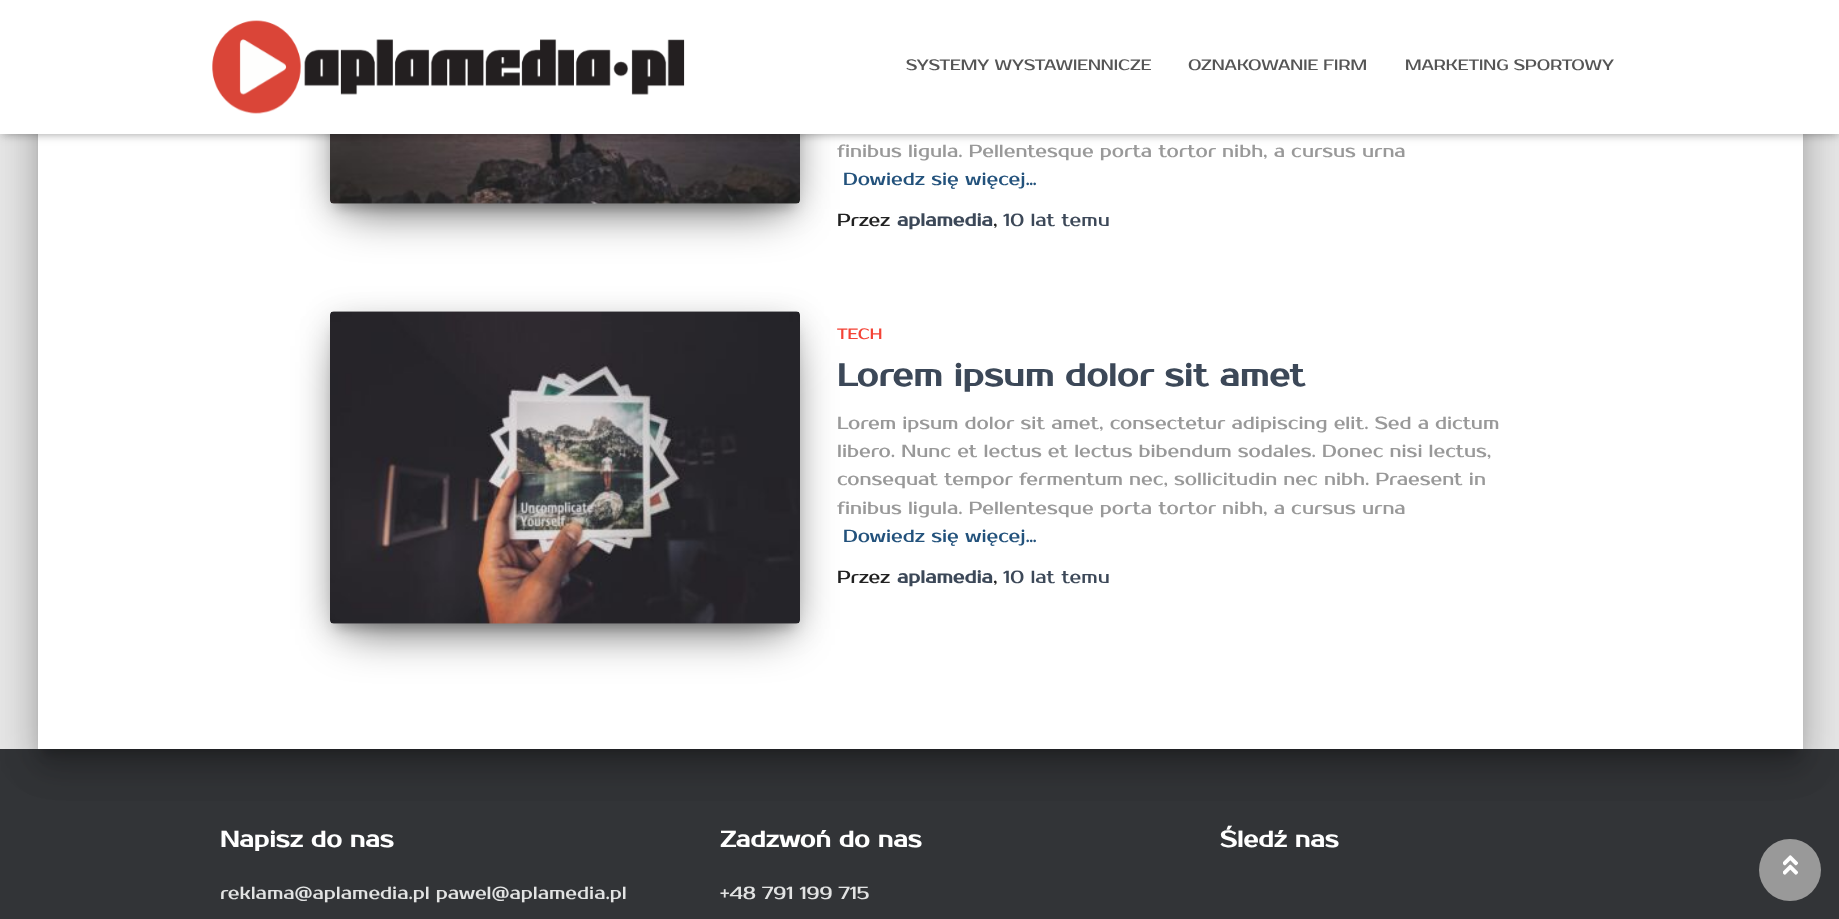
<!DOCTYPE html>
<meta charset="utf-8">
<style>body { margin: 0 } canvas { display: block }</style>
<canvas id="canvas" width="1839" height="919"></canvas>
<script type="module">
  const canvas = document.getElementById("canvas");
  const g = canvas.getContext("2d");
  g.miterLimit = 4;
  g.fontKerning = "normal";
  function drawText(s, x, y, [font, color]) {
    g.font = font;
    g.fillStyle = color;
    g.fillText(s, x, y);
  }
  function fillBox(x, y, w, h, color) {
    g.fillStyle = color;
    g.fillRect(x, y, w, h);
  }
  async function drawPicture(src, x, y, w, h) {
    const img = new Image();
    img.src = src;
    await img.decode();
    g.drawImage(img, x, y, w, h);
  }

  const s1 = ["15px Prosto One", "#555555"];
  const s2 = ["17.5px Prosto One", "#999999"];
  const s3 = ["17.5px Prosto One", "#23527C"];
  const s4 = ["17.5px Prosto One", "#212121"];
  const s5 = ["bold 17.5px Prosto One", "#3C4858"];
  const s6 = ["17.5px Prosto One", "#3C4858"];
  const s7 = ["15px Prosto One", "#F44336"];
  const s8 = ["bold 31.25px Prosto One", "#3C4858"];
  const s9 = ["bold 22.5px Prosto One", "#FFFFFF"];
  const s10 = ["17.5px Prosto One", "#E2E3E3"];

  fillBox(0, 0, 1839, 919, "#E5E5E5");
  fillBox(0, 749, 1839, 170, "#323437");
  g.fillStyle = "rgba(0, 0, 0, 0.2)";
  g.filter = "blur(6px)";
  g.beginPath();
  g.roundRect(44, -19, 1752, 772, 1);
  g.fill();
  g.filter = "none";
  g.fillStyle = "rgba(0, 0, 0, 0.12)";
  g.filter = "blur(19px)";
  g.beginPath();
  g.roundRect(31, -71, 1778, 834, 14);
  g.fill();
  g.filter = "none";
  g.fillStyle = "rgba(0, 0, 0, 0.14)";
  g.filter = "blur(15px)";
  g.beginPath();
  g.roundRect(35, -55, 1770, 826, 10);
  g.fill();
  g.filter = "none";
  fillBox(38, 134, 1765, 615, "#FFFFFF");
  g.fillStyle = "rgba(0, 0, 0, 0.2)";
  g.filter = "blur(6px)";
  g.beginPath();
  g.rect(336, -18, 458, 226);
  g.fill();
  g.filter = "none";
  g.fillStyle = "rgba(0, 0, 0, 0.12)";
  g.filter = "blur(15.5px)";
  g.beginPath();
  g.roundRect(330, -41, 470, 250, 4);
  g.fill();
  g.filter = "none";
  g.fillStyle = "rgba(0, 0, 0, 0.56)";
  g.filter = "blur(24px)";
  g.beginPath();
  g.rect(345, -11, 440, 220);
  g.fill();
  g.filter = "none";
  await drawPicture("pic2.png", 330, 134, 470, 70);
  g.fillStyle = "rgba(0, 0, 0, 0.1)";
  g.filter = "blur(3px)";
  g.beginPath();
  g.rect(3, 8, 1835, 128);
  g.fill();
  g.filter = "none";
  g.fillStyle = "rgba(0, 0, 0, 0.12)";
  g.filter = "blur(6px)";
  g.beginPath();
  g.rect(0, 1, 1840, 134);
  g.fill();
  g.filter = "none";
  g.fillStyle = "rgba(0, 0, 0, 0.42)";
  g.filter = "blur(6px)";
  g.beginPath();
  g.rect(8, 9, 1825, 119);
  g.fill();
  g.filter = "none";
  fillBox(0, 0, 1839, 134, "#FFFFFF");
  await drawPicture("pic1.png", 212, 20, 473, 94);
  drawText("SYSTEMY WYSTAWIENNICZE", 906, 70, s1);
  drawText("OZNAKOWANIE FIRM", 1188, 70, s1);
  drawText("MARKETING SPORTOWY", 1405, 70, s1);
  drawText("finibus ligula. Pellentesque porta tortor nibh, a cursus urna", 837, 157, s2);
  drawText("Dowiedz się więcej…", 843, 185, s3);
  drawText("Przez", 837, 226, s4);
  drawText("aplamedia", 897, 226, s5);
  drawText(",", 993, 226, s4);
  drawText("10 lat temu", 1003, 226, s6);
  g.fillStyle = "rgba(0, 0, 0, 0.2)";
  g.filter = "blur(6px)";
  g.beginPath();
  g.rect(336, 328, 458, 300);
  g.fill();
  g.filter = "none";
  g.fillStyle = "rgba(0, 0, 0, 0.12)";
  g.filter = "blur(15.5px)";
  g.beginPath();
  g.roundRect(330, 316, 470, 313, 4);
  g.fill();
  g.filter = "none";
  g.fillStyle = "rgba(0, 0, 0, 0.56)";
  g.filter = "blur(24px)";
  g.beginPath();
  g.rect(345, 346, 440, 283);
  g.fill();
  g.filter = "none";
  await drawPicture("pic3.png", 330, 311, 470, 313);
  drawText("TECH", 837, 339, s7);
  drawText("Lorem ipsum dolor sit amet", 837, 386, s8);
  drawText("Lorem ipsum dolor sit amet, consectetur adipiscing elit. Sed a dictum", 837, 429, s2);
  drawText("libero. Nunc et lectus et lectus bibendum sodales. Donec nisi lectus,", 837, 457, s2);
  drawText("consequat tempor fermentum nec, sollicitudin nec nibh. Praesent in", 837, 485, s2);
  drawText("finibus ligula. Pellentesque porta tortor nibh, a cursus urna", 837, 514, s2);
  drawText("Dowiedz się więcej…", 843, 542, s3);
  drawText("Przez", 837, 583, s4);
  drawText("aplamedia", 897, 583, s5);
  drawText(",", 993, 583, s4);
  drawText("10 lat temu", 1003, 583, s6);
  drawText("Napisz do nas", 220, 847, s9);
  drawText("reklama@aplamedia.pl pawel@aplamedia.pl", 220, 899, s10);
  drawText("Zadzwoń do nas", 720, 847, s9);
  drawText("+48 791 199 715", 720, 899, s10);
  drawText("Śledź nas", 1220, 847, s9);
  g.fillStyle = "#999999";
  g.beginPath();
  g.arc(1790, 870, 31, 0, Math.PI * 2);
  g.fill();
  await drawPicture("pic4.png", 1783, 855, 15, 20);
</script>
